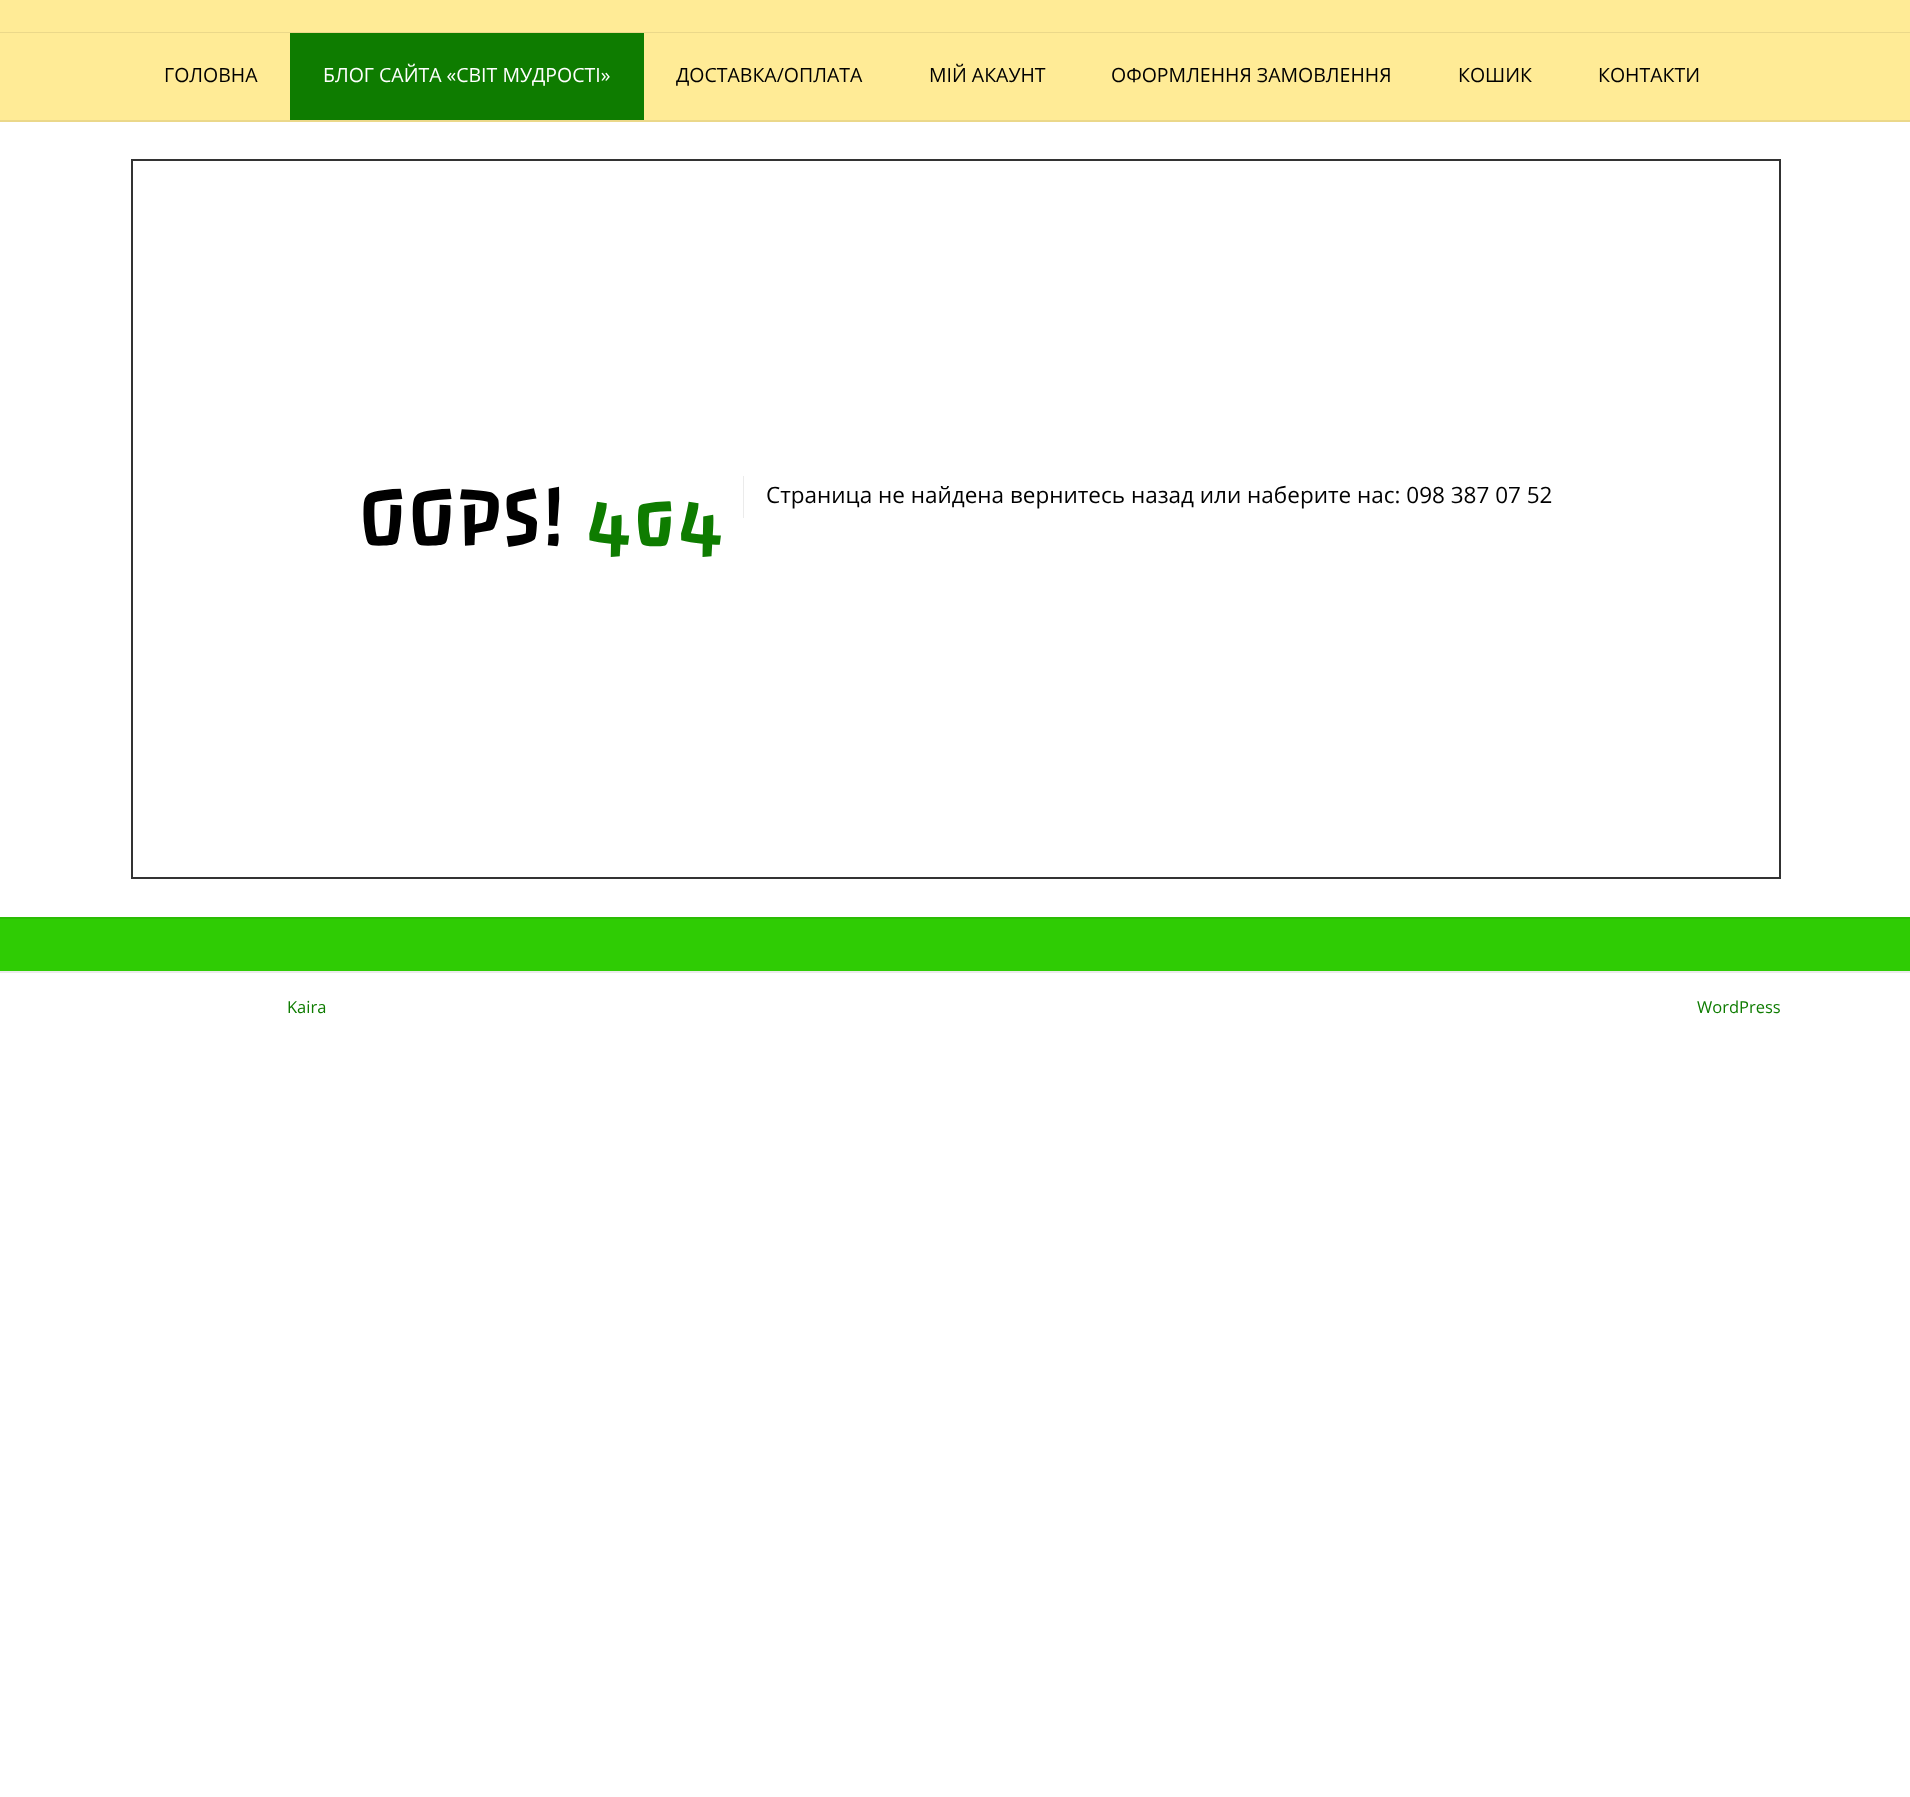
<!DOCTYPE html>
<meta charset="utf-8">
<style>body { margin: 0 } canvas { display: block }</style>
<canvas id="canvas" width="1910" height="1797"></canvas>
<script type="module">
  const canvas = document.getElementById("canvas");
  const g = canvas.getContext("2d");
  g.miterLimit = 4;
  g.fontKerning = "normal";
  function drawText(s, x, y, [font, color]) {
    g.font = font;
    g.fillStyle = color;
    g.fillText(s, x, y);
  }
  function fillBox(x, y, w, h, color) {
    g.fillStyle = color;
    g.fillRect(x, y, w, h);
  }

  const s1 = ["19.5px Open Sans", "#000000"];
  const s2 = ["19.5px Open Sans", "#FFFFFF"];
  const s3 = ["87px Passero One", "#000000"];
  const s4 = ["87px Passero One", "#0E7C00"];
  const s5 = ["22.5px Open Sans", "#000000"];
  const s6 = ["16.5px Open Sans", "#0E7C00"];

  fillBox(0, 0, 1910, 1797, "#FFFFFF");
  fillBox(0, 0, 1910, 120, "#FFEB96");
  fillBox(0, 120, 1910, 2, "#EBD88A");
  fillBox(0, 32, 1910, 1, "#EBD88A");
  drawText("ГОЛОВНА", 164, 82, s1);
  fillBox(290, 33, 354, 87, "#0E7C00");
  drawText("БЛОГ САЙТА «СВІТ МУДРОСТІ»", 323, 82, s2);
  drawText("ДОСТАВКА/ОПЛАТА", 676, 82, s1);
  drawText("МІЙ АКАУНТ", 929, 82, s1);
  drawText("ОФОРМЛЕННЯ ЗАМОВЛЕННЯ", 1111, 82, s1);
  drawText("КОШИК", 1458, 82, s1);
  drawText("КОНТАКТИ", 1598, 82, s1);
  fillBox(1779, 159, 2, 720, "#F5F5F5");
  g.strokeStyle = "rgba(0, 0, 0, 0.8)";
  g.lineWidth = 2;
  g.strokeRect(132, 160, 1648, 718);
  drawText("OOPS!", 358, 545, s3);
  drawText("404", 586, 545, s4);
  g.fillStyle = "#EBEBEB";
  g.beginPath();
  g.moveTo(743, 476);
  g.lineTo(743, 518);
  g.lineTo(1551, 518);
  g.lineTo(744, 518);
  g.lineTo(744, 476);
  g.closePath();
  g.fill();
  drawText("Страница не найдена вернитесь назад или наберите нас: 098 387 07 52", 766, 503, s5);
  fillBox(0, 919, 1910, 52, "#2FCC04");
  fillBox(0, 917, 1910, 2, "#2BBC04");
  fillBox(0, 971, 1910, 2, "#EBEBEB");
  drawText("Kaira", 287, 1013, s6);
  drawText("WordPress", 1697, 1013, s6);
</script>
